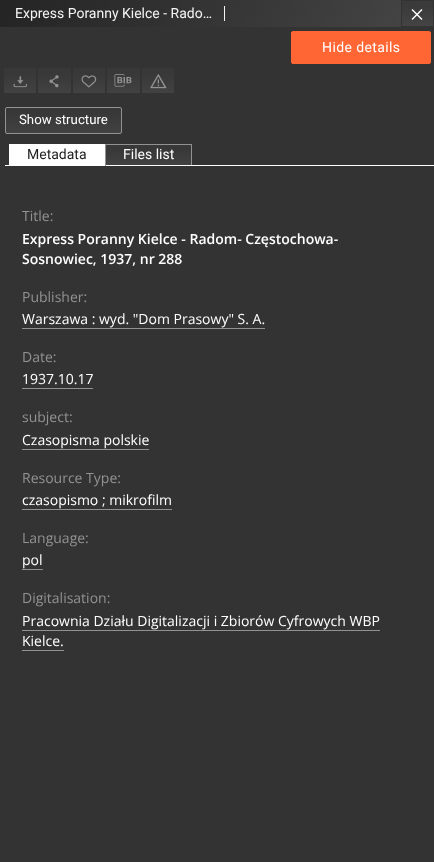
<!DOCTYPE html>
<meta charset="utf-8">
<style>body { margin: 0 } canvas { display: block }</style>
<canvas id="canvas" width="434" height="862"></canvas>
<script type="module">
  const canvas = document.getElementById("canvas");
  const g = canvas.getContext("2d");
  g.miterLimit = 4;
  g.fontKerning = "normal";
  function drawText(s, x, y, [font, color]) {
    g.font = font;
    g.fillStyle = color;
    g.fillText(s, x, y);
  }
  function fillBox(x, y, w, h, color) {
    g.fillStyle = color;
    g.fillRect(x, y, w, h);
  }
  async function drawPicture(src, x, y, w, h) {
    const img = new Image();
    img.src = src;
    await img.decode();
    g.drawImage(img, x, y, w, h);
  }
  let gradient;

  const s1 = ["14px Roboto", "#F5F5F5"];
  const s2 = ["14px Roboto", "#FFFFFF"];
  const s3 = ["13.25px Roboto", "#FFFFFF"];
  const s4 = ["14px Roboto", "#222222"];
  const s5 = ["14px Open Sans", "#929292"];
  const s6 = ["600 14px Open Sans", "#FFFFFF"];
  const s7 = ["14px Open Sans", "#FFFFFF"];

  fillBox(0, 0, 434, 862, "#333333");
  gradient = g.createLinearGradient(45, -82, 389, 109);
  gradient.addColorStop(0, "#242424");
  gradient.addColorStop(1, "#464646");
  g.fillStyle = gradient;
  g.fillRect(0, 0, 433, 27);
  fillBox(224, 6, 1, 15, "#F5F5F5");
  drawText("Express Poranny Kielce - Rado…", 15, 18, s1);
  gradient = g.createLinearGradient(418, 1, 418, 51);
  gradient.addColorStop(0.11, "rgba(57, 57, 57, 0.91)");
  gradient.addColorStop(1, "rgba(82, 82, 82, 0.91)");
  g.fillStyle = gradient;
  g.fillRect(402, 1, 31, 24);
  g.strokeStyle = "#333333";
  g.strokeRect(401.5, 0.5, 32, 26);
  g.fillStyle = "#FFFFFF";
  g.beginPath();
  g.moveTo(411.5, 19);
  g.lineTo(421.5, 9);
  g.lineTo(422.5, 10);
  g.lineTo(412.5, 20);
  g.closePath();
  g.fill();
  g.beginPath();
  g.moveTo(412.5, 9);
  g.lineTo(422.5, 19);
  g.lineTo(421.5, 20);
  g.lineTo(411.5, 10);
  g.closePath();
  g.fill();
  g.fillStyle = "#FF6633";
  g.beginPath();
  g.roundRect(291.5, 31.5, 139, 32, 1.5);
  g.fill();
  g.strokeStyle = "#FF6633";
  g.stroke();
  g.letterSpacing = "0.4px";
  drawText("Hide details", 322, 52, s2);
  gradient = g.createLinearGradient(20, 68, 20, 118);
  gradient.addColorStop(0.11, "#383838");
  gradient.addColorStop(1, "#4F4F4F");
  g.fillStyle = gradient;
  g.fillRect(4, 68, 32, 25);
  await drawPicture("pic1.png", 13, 76, 14, 12);
  gradient = g.createLinearGradient(55, 68, 55, 118);
  gradient.addColorStop(0.11, "#383838");
  gradient.addColorStop(1, "#4F4F4F");
  g.fillStyle = gradient;
  g.fillRect(38, 68, 33, 25);
  await drawPicture("pic2.png", 49, 75, 10, 13);
  gradient = g.createLinearGradient(89, 68, 89, 118);
  gradient.addColorStop(0.11, "#383838");
  gradient.addColorStop(1, "#4F4F4F");
  g.fillStyle = gradient;
  g.fillRect(73, 68, 32, 25);
  await drawPicture("pic3.png", 81, 75, 16, 13);
  gradient = g.createLinearGradient(124, 68, 124, 118);
  gradient.addColorStop(0.11, "#383838");
  gradient.addColorStop(1, "#4F4F4F");
  g.fillStyle = gradient;
  g.fillRect(107, 68, 33, 25);
  await drawPicture("pic4.png", 114, 74, 18, 13);
  gradient = g.createLinearGradient(158, 68, 158, 118);
  gradient.addColorStop(0.11, "#383838");
  gradient.addColorStop(1, "#4F4F4F");
  g.fillStyle = gradient;
  g.fillRect(142, 68, 32, 25);
  await drawPicture("pic5.png", 150, 74, 17, 15);
  g.save();
  g.beginPath();
  g.roundRect(5, 107, 117, 27, 2);
  g.clip();
  gradient = g.createLinearGradient(64, 108, 64, 158);
  gradient.addColorStop(0.11, "#383838");
  gradient.addColorStop(1, "#4F4F4F");
  g.fillStyle = gradient;
  g.fillRect(5, 108, 117, 25);
  g.restore();
  g.beginPath();
  g.roundRect(5.5, 107.5, 116, 26, 1.5);
  g.strokeStyle = "#929292";
  g.stroke();
  g.letterSpacing = "0px";
  drawText("Show structure", 19, 124, s3);
  fillBox(5, 165, 429, 1, "#FFFFFF");
  fillBox(9, 144, 96, 21, "#FFFFFF");
  drawText("Metadata", 27, 159, s4);
  gradient = g.createLinearGradient(149, 145, 149, 185);
  gradient.addColorStop(0.11, "#383838");
  gradient.addColorStop(1, "#4F4F4F");
  g.fillStyle = gradient;
  g.fillRect(106, 145, 85, 20);
  fillBox(105, 144, 87, 1, "#929292");
  fillBox(191, 144, 1, 22, "#929292");
  fillBox(191, 165, 1, 1, "#FFFFFF");
  fillBox(105, 144, 1, 22, "#929292");
  drawText("Files list", 123, 159, s2);
  drawText("Title:", 22, 221, s5);
  drawText("Express Poranny Kielce - Radom- Częstochowa-", 22, 244, s6);
  drawText("Sosnowiec, 1937, nr 288", 22, 264, s6);
  drawText("Publisher:", 22, 302, s5);
  drawText("Warszawa : wyd. \"Dom Prasowy\" S. A.", 22, 324, s7);
  fillBox(22, 328, 243, 1, "#929292");
  drawText("Date:", 22, 362, s5);
  drawText("1937.10.17", 22, 384, s7);
  fillBox(22, 388, 71, 1, "#929292");
  drawText("subject:", 22, 422, s5);
  drawText("Czasopisma polskie", 22, 445, s7);
  fillBox(22, 449, 127, 1, "#929292");
  drawText("Resource Type:", 22, 483, s5);
  drawText("czasopismo ; mikrofilm", 22, 505, s7);
  fillBox(22, 509, 150, 1, "#929292");
  drawText("Language:", 22, 543, s5);
  drawText("pol", 22, 565, s7);
  fillBox(22, 569, 21, 1, "#929292");
  drawText("Digitalisation:", 22, 603, s5);
  drawText("Pracownia Działu Digitalizacji i Zbiorów Cyfrowych WBP", 22, 626, s7);
  fillBox(22, 630, 358, 1, "#929292");
  drawText("Kielce.", 22, 646, s7);
  fillBox(22, 650, 42, 1, "#929292");
</script>
